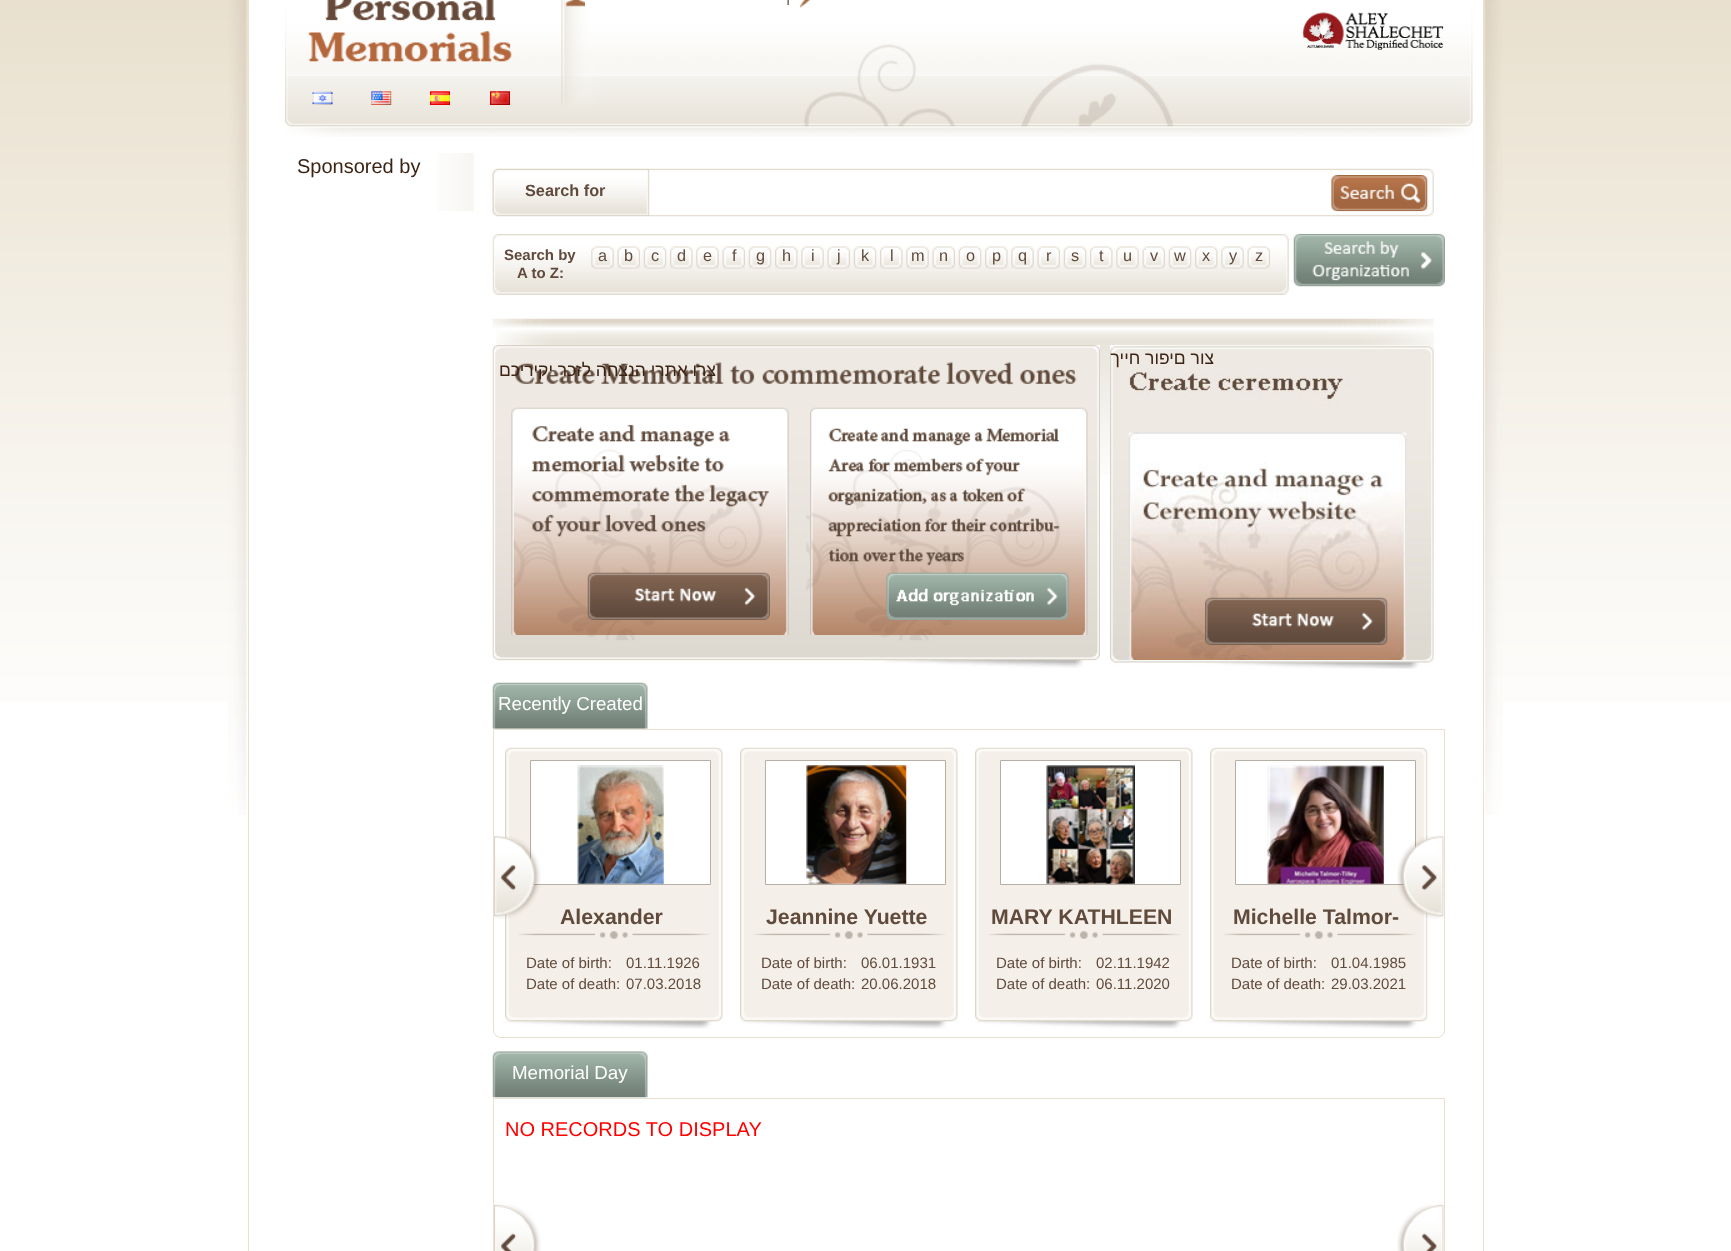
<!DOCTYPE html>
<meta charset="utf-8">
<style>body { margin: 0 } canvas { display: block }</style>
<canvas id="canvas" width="1731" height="1251"></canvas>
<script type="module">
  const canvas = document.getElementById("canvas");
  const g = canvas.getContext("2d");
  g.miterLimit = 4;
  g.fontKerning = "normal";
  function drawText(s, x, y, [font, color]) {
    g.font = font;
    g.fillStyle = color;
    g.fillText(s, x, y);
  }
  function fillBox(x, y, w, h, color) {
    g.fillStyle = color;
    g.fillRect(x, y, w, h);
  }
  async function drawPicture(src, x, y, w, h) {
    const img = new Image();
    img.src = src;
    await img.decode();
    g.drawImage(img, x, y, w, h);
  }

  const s1 = ["20px Liberation Sans", "#3C2415"];
  const s2 = ["bold 16.25px Liberation Sans", "#5F4A3C"];
  const s3 = ["bold 15px Liberation Sans", "#5F4A3C"];
  const s4 = ["16.25px Liberation Sans", "#5F4A3C"];
  const s5 = ["17.5px Liberation Sans", "#3C2415"];
  const s6 = ["18.75px Liberation Sans", "#FEFEFE"];
  const s7 = ["bold 21.25px Liberation Sans", "#5F4A3C"];
  const s8 = ["15px Liberation Sans", "#5F4A3C"];
  const s9 = ["20px Liberation Sans", "#FF0000"];

  fillBox(0, 0, 1731, 1251, "#FFFFFF");
  await drawPicture("pic1.png", 0, 0, 1731, 702);
  await drawPicture("pic2.png", 228, 0, 1275, 815);
  fillBox(249, 0, 1234, 702, "#FFFFFF");
  fillBox(1483, 0, 1, 1251, "#E9E0D1");
  fillBox(248, 0, 1, 1251, "#E9E0D1");
  await drawPicture("pic3.png", 285, 0, 1188, 137);
  await drawPicture("pic4.png", 308, 0, 204, 62);
  await drawPicture("pic5.png", 565, 0, 20, 7);
  await drawPicture("pic6.png", 787, 0, 2, 5);
  await drawPicture("pic7.png", 800, 0, 11, 8);
  await drawPicture("pic8.png", 1303, 12, 141, 38);
  await drawPicture("pic9.png", 312, 91, 21, 14);
  await drawPicture("pic10.png", 371, 91, 21, 14);
  await drawPicture("pic11.png", 430, 91, 20, 14);
  await drawPicture("pic12.png", 490, 91, 20, 14);
  await drawPicture("pic13.png", 438, 153, 36, 58);
  drawText("Sponsored by", 297, 173, s1);
  await drawPicture("pic14.png", 492, 168, 942, 49);
  drawText("Search for", 525, 196, s2);
  await drawPicture("pic15.png", 1331, 175, 97, 37);
  await drawPicture("pic16.png", 492, 234, 797, 61);
  drawText("Search by", 504, 260, s3);
  drawText("A to Z:", 517, 278, s3);
  await drawPicture("pic17.png", 591, 246, 23, 23);
  drawText("a", 598, 261, s4);
  await drawPicture("pic18.png", 617, 246, 23, 23);
  drawText("b", 624, 261, s4);
  await drawPicture("pic19.png", 643, 246, 24, 23);
  drawText("c", 651, 261, s4);
  await drawPicture("pic20.png", 670, 246, 23, 23);
  drawText("d", 677, 261, s4);
  await drawPicture("pic17.png", 696, 246, 23, 23);
  drawText("e", 703, 261, s4);
  await drawPicture("pic18.png", 722, 246, 23, 23);
  drawText("f", 732, 261, s4);
  await drawPicture("pic21.png", 748, 246, 24, 23);
  drawText("g", 756, 261, s4);
  await drawPicture("pic20.png", 775, 246, 23, 23);
  drawText("h", 782, 261, s4);
  await drawPicture("pic17.png", 801, 246, 23, 23);
  drawText("i", 811, 261, s4);
  await drawPicture("pic22.png", 827, 246, 23, 23);
  drawText("j", 837, 261, s4);
  await drawPicture("pic23.png", 853, 246, 24, 23);
  drawText("k", 861, 261, s4);
  await drawPicture("pic24.png", 880, 246, 23, 23);
  drawText("l", 890, 261, s4);
  await drawPicture("pic17.png", 906, 246, 23, 23);
  drawText("m", 911, 261, s4);
  await drawPicture("pic22.png", 932, 246, 23, 23);
  drawText("n", 939, 261, s4);
  await drawPicture("pic23.png", 958, 246, 24, 23);
  drawText("o", 966, 261, s4);
  await drawPicture("pic20.png", 985, 246, 23, 23);
  drawText("p", 992, 261, s4);
  await drawPicture("pic17.png", 1011, 246, 23, 23);
  drawText("q", 1018, 261, s4);
  await drawPicture("pic22.png", 1037, 246, 23, 23);
  drawText("r", 1046, 261, s4);
  await drawPicture("pic23.png", 1063, 246, 24, 23);
  drawText("s", 1071, 261, s4);
  await drawPicture("pic24.png", 1090, 246, 23, 23);
  drawText("t", 1099, 261, s4);
  await drawPicture("pic17.png", 1116, 246, 23, 23);
  drawText("u", 1123, 261, s4);
  await drawPicture("pic22.png", 1142, 246, 23, 23);
  drawText("v", 1150, 261, s4);
  await drawPicture("pic23.png", 1168, 246, 24, 23);
  drawText("w", 1174, 261, s4);
  await drawPicture("pic24.png", 1195, 246, 23, 23);
  drawText("x", 1202, 261, s4);
  await drawPicture("pic17.png", 1221, 246, 23, 23);
  drawText("y", 1229, 261, s4);
  await drawPicture("pic18.png", 1247, 246, 23, 23);
  drawText("z", 1255, 261, s4);
  await drawPicture("pic25.png", 1293, 233, 152, 54);
  await drawPicture("pic26.png", 492, 318, 942, 157);
  await drawPicture("pic27.png", 492, 345, 608, 323);
  await drawPicture("pic28.png", 515, 362, 562, 23);
  g.direction = "rtl";
  drawText("צרו אתרי הנצחה לזכר יקיריכם", 716, 376, s5);
  await drawPicture("pic29.png", 511, 407, 278, 228);
  await drawPicture("pic30.png", 587, 572, 183, 48);
  await drawPicture("pic31.png", 810, 407, 278, 228);
  await drawPicture("pic32.png", 886, 572, 183, 48);
  await drawPicture("pic33.png", 1110, 345, 324, 324);
  drawText("צור םיפור חייך", 1214, 364, s5);
  await drawPicture("pic34.png", 1128, 432, 279, 228);
  await drawPicture("pic35.png", 1205, 597, 183, 48);
  await drawPicture("pic36.png", 492, 682, 156, 47);
  g.direction = "ltr";
  drawText("Recently Created", 498, 710, s6);
  g.beginPath();
  g.roundRect(493.5, 729.5, 951, 308, [0, 0, 7.5, 7.5]);
  g.strokeStyle = "#E9E0D1";
  g.stroke();
  await drawPicture("pic39.png", 505, 747, 218, 282);
  g.fillStyle = "#FFFFFF";
  g.beginPath();
  g.rect(530.5, 760.5, 180, 124);
  g.fill();
  g.strokeStyle = "#B5AFA5";
  g.stroke();
  await drawPicture("pic37.png", 494, 836, 47, 83);
  await drawPicture("pic45.png", 1210, 747, 218, 282);
  g.beginPath();
  g.rect(1235.5, 760.5, 180, 124);
  g.fill();
  g.stroke();
  drawText("Michelle Talmor-", 1233, 924, s7);
  await drawPicture("pic38.png", 1397, 836, 47, 83);
  await drawPicture("pic40.png", 577, 765, 87, 119);
  drawText("Alexander", 560, 924, s7);
  drawText("Date of birth:", 526, 968, s8);
  drawText("01.11.1926", 626, 968, s8);
  drawText("Date of death:", 526, 989, s8);
  drawText("07.03.2018", 626, 989, s8);
  await drawPicture("pic41.png", 740, 747, 218, 282);
  g.fillStyle = "#FFFFFF";
  g.beginPath();
  g.rect(765.5, 760.5, 180, 124);
  g.fill();
  g.stroke();
  await drawPicture("pic42.png", 806, 765, 101, 119);
  drawText("Jeannine Yuette", 766, 924, s7);
  drawText("Date of birth:", 761, 968, s8);
  drawText("06.01.1931", 861, 968, s8);
  drawText("Date of death:", 761, 989, s8);
  drawText("20.06.2018", 861, 989, s8);
  await drawPicture("pic43.png", 975, 747, 218, 282);
  g.fillStyle = "#FFFFFF";
  g.beginPath();
  g.rect(1000.5, 760.5, 180, 124);
  g.fill();
  g.stroke();
  await drawPicture("pic44.png", 1046, 765, 89, 119);
  drawText("MARY KATHLEEN", 991, 924, s7);
  drawText("Date of birth:", 996, 968, s8);
  drawText("02.11.1942", 1096, 968, s8);
  drawText("Date of death:", 996, 989, s8);
  drawText("06.11.2020", 1096, 989, s8);
  await drawPicture("pic46.png", 1267, 765, 117, 119);
  drawText("Date of birth:", 1231, 968, s8);
  drawText("01.04.1985", 1331, 968, s8);
  drawText("Date of death:", 1231, 989, s8);
  drawText("29.03.2021", 1331, 989, s8);
  await drawPicture("pic47.png", 492, 1051, 156, 47);
  drawText("Memorial Day", 512, 1079, s6);
  g.strokeStyle = "#E9E0D1";
  g.strokeRect(493.5, 1098.5, 951, 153);
  drawText("NO RECORDS TO DISPLAY", 505, 1136, s9);
  await drawPicture("pic48.png", 494, 1204, 47, 47);
  await drawPicture("pic49.png", 1397, 1204, 47, 47);
</script>
